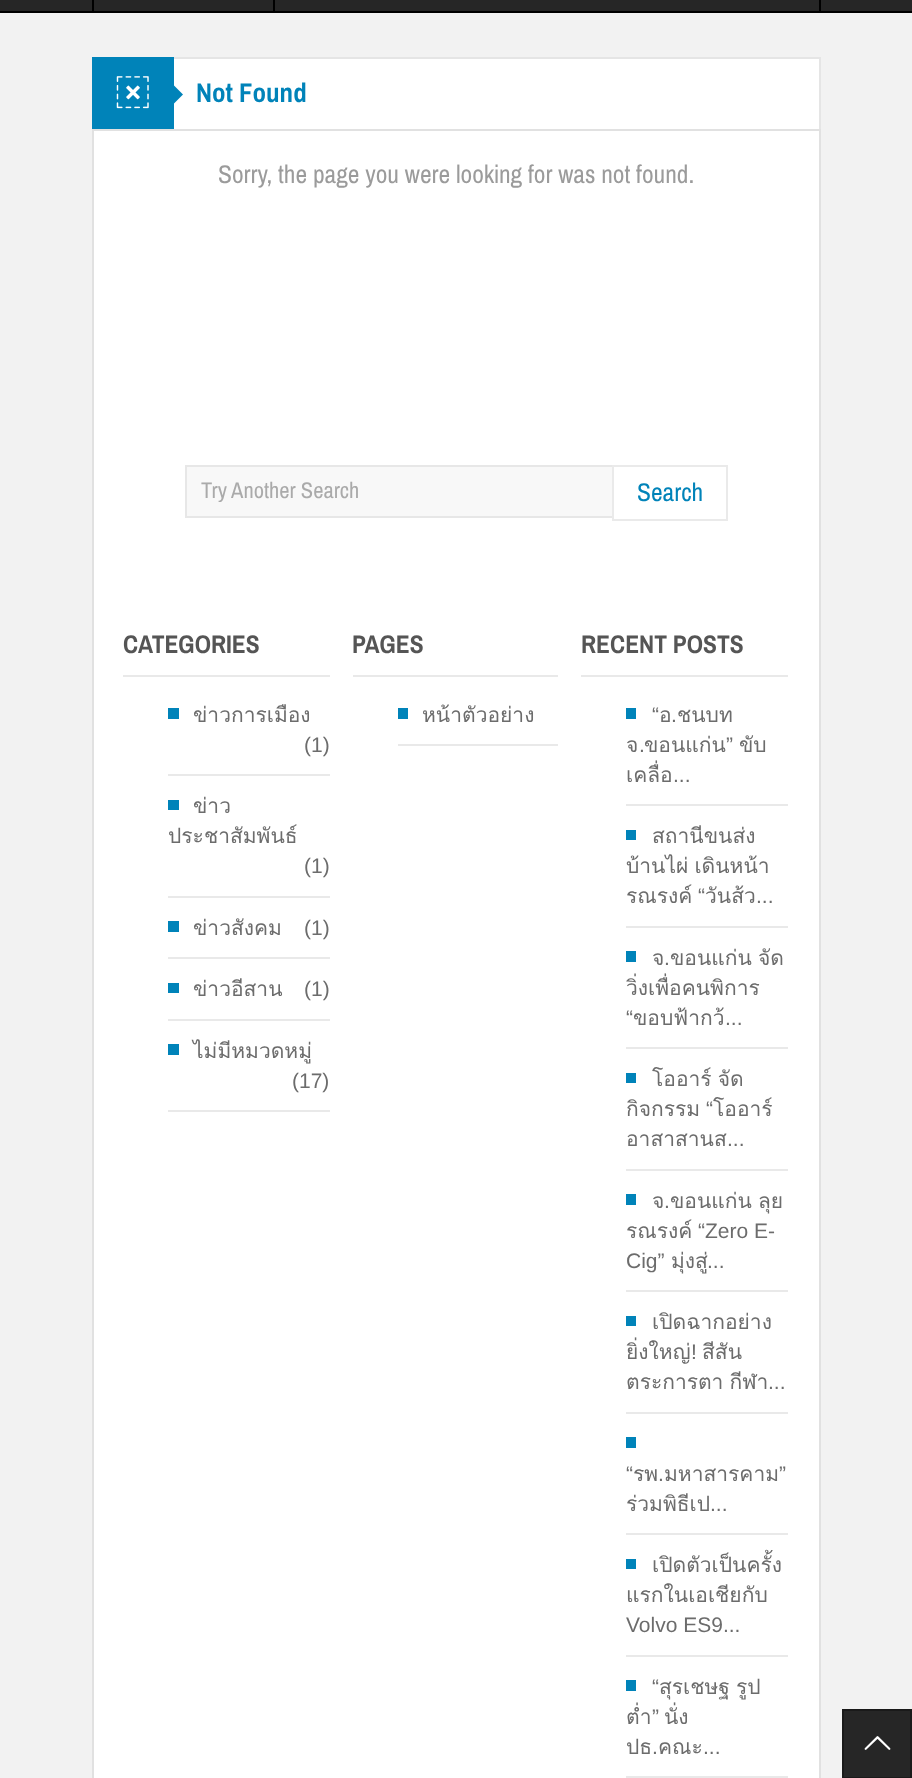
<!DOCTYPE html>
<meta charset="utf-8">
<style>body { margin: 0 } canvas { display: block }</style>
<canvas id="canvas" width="912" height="1778"></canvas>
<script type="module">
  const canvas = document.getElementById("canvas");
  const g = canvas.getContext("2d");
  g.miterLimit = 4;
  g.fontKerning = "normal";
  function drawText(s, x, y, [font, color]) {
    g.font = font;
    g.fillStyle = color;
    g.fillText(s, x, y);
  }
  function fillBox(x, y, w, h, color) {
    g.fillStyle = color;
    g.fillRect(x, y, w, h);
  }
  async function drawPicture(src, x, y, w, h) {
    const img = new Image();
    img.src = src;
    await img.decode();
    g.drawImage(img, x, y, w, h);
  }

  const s1 = ["bold 27px Archivo Narrow", "#0083B9"];
  const s2 = ["25.5px Archivo Narrow", "#9B9B9B"];
  const s3 = ["22.5px Archivo Narrow", "#AAAAAA"];
  const s4 = ["25.5px Archivo Narrow", "#0083B9"];
  const s5 = ["bold 25.5px Archivo Narrow", "#555555"];
  const s6 = ["21px Loma", "#6C6C6C"];
  const s7 = ["21px Liberation Sans", "#6C6C6C"];

  fillBox(0, 0, 912, 1778, "#F2F2F2");
  fillBox(0, 0, 912, 11, "#262626");
  fillBox(0, 11, 912, 2, "#000000");
  fillBox(273, 0, 2, 11, "#000000");
  fillBox(92, 0, 2, 11, "#000000");
  fillBox(819, 0, 2, 11, "#000000");
  fillBox(174, 59, 645, 70, "#FFFFFF");
  fillBox(174, 57, 647, 2, "#E5E5E5");
  fillBox(819, 57, 2, 72, "#E5E5E5");
  fillBox(92, 57, 82, 72, "#0083B9");
  await drawPicture("pic1.png", 116, 76, 33, 33);
  g.beginPath();
  g.moveTo(174, 103.5);
  g.lineTo(174, 85.5);
  g.lineTo(183, 94.5);
  g.closePath();
  g.fill();
  drawText("Not Found", 196, 102, s1);
  g.fillStyle = "#FFFFFF";
  g.beginPath();
  g.rect(93, 130, 727, 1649);
  g.fill();
  g.strokeStyle = "#E1E1E1";
  g.lineWidth = 2;
  g.stroke();
  drawText("Sorry, the page you were looking for was not found.", 218, 183, s2);
  fillBox(187, 467, 425, 49, "#F8F8F8");
  fillBox(185, 465, 427, 2, "#E7E7E7");
  fillBox(185, 516, 427, 2, "#E7E7E7");
  fillBox(185, 465, 2, 53, "#E7E7E7");
  drawText("Try Another Search", 201, 498, s3);
  g.strokeStyle = "#EAEAEA";
  g.strokeRect(613, 466, 114, 54);
  drawText("Search", 637, 501, s4);
  fillBox(123, 675, 207, 2, "#E9E9E9");
  drawText("CATEGORIES", 123, 653, s5);
  fillBox(168, 774, 162, 2, "#E9E9E9");
  fillBox(168, 708, 11, 11, "#0083B9");
  drawText("ข่าวการเมือง", 193, 722, s6);
  drawText("(1)", 304, 752, s7);
  fillBox(168, 896, 162, 2, "#E9E9E9");
  fillBox(168, 800, 11, 10, "#0083B9");
  drawText("ข่าว", 193, 813, s6);
  drawText("ประชาสัมพันธ์", 168, 843, s6);
  drawText("(1)", 304, 873, s7);
  fillBox(168, 957, 162, 2, "#E9E9E9");
  fillBox(168, 921, 11, 11, "#0083B9");
  drawText("ข่าวสังคม", 193, 935, s6);
  drawText("(1)", 304, 935, s7);
  fillBox(168, 1019, 162, 2, "#E9E9E9");
  fillBox(168, 983, 11, 10, "#0083B9");
  drawText("ข่าวอีสาน", 193, 996, s6);
  drawText("(1)", 304, 996, s7);
  fillBox(168, 1110, 162, 2, "#E9E9E9");
  fillBox(168, 1044, 11, 11, "#0083B9");
  drawText("ไม่มีหมวดหมู่", 193, 1058, s6);
  drawText("(17)", 292, 1088, s7);
  fillBox(353, 675, 205, 2, "#E9E9E9");
  drawText("PAGES", 352, 653, s5);
  fillBox(398, 744, 160, 2, "#E9E9E9");
  fillBox(398, 708, 10, 11, "#0083B9");
  drawText("หน้าตัวอย่าง", 422, 722, s6);
  fillBox(581, 675, 207, 2, "#E9E9E9");
  drawText("RECENT POSTS", 581, 653, s5);
  fillBox(626, 804, 162, 2, "#E9E9E9");
  fillBox(626, 708, 10, 11, "#0083B9");
  drawText("“", 652, 722, s7);
  drawText("อ", 659, 722, s6);
  drawText(".", 671, 722, s7);
  drawText("ชนบท", 677, 722, s6);
  drawText("จ", 626, 752, s6);
  drawText(".", 639, 752, s7);
  drawText("ขอนแก่น", 644, 752, s6);
  drawText("”", 726, 752, s7);
  drawText("ขับ", 739, 752, s6);
  drawText("เคลื่อ", 626, 782, s6);
  drawText("...", 673, 782, s7);
  fillBox(626, 926, 162, 2, "#E9E9E9");
  fillBox(626, 830, 10, 10, "#0083B9");
  drawText("สถานีขนส่ง", 652, 843, s6);
  g.save();
  g.beginPath();
  g.rect(626, 806, 162, 120);
  g.clip();
  g.wordSpacing = "-1px";
  drawText("บ้านไผ่ เดินหน้า", 626, 873, s6);
  g.restore();
  drawText("รณรงค์", 626, 903, s6);
  drawText("“", 698, 903, s7);
  drawText("วันส้ว", 705, 903, s6);
  drawText("...", 756, 903, s7);
  fillBox(626, 1047, 162, 2, "#E9E9E9");
  fillBox(626, 951, 10, 11, "#0083B9");
  drawText("จ", 652, 965, s6);
  drawText(".", 664, 965, s7);
  g.wordSpacing = "-1px";
  drawText("ขอนแก่น จัด", 670, 965, s6);
  g.save();
  g.beginPath();
  g.rect(626, 927, 162, 120);
  g.clip();
  g.wordSpacing = "0px";
  drawText("วิ่งเพื่อคนพิการ", 626, 995, s6);
  g.restore();
  g.wordSpacing = "0px";
  drawText("“", 626, 1025, s7);
  drawText("ขอบฟ้ากว้", 633, 1025, s6);
  drawText("...", 725, 1025, s7);
  fillBox(626, 1169, 162, 2, "#E9E9E9");
  fillBox(626, 1073, 10, 10, "#0083B9");
  g.wordSpacing = "-1px";
  drawText("โออาร์ จัด", 652, 1086, s6);
  g.save();
  g.beginPath();
  g.rect(626, 1049, 162, 120);
  g.clip();
  g.wordSpacing = "0px";
  drawText("กิจกรรม", 626, 1116, s6);
  g.restore();
  g.wordSpacing = "0px";
  drawText("“", 706, 1116, s7);
  drawText("โออาร์", 713, 1116, s6);
  drawText("อาสาสานส", 626, 1146, s6);
  drawText("...", 727, 1146, s7);
  fillBox(626, 1290, 162, 2, "#E9E9E9");
  fillBox(626, 1194, 10, 11, "#0083B9");
  drawText("จ", 652, 1208, s6);
  drawText(".", 664, 1208, s7);
  g.wordSpacing = "-1px";
  drawText("ขอนแก่น ลุย", 670, 1208, s6);
  g.wordSpacing = "0px";
  drawText("รณรงค์", 626, 1238, s6);
  drawText("“Zero E-", 698, 1238, s7);
  drawText("Cig”", 626, 1268, s7);
  drawText("มุ่งสู่", 671, 1268, s6);
  drawText("...", 707, 1268, s7);
  fillBox(626, 1412, 162, 2, "#E9E9E9");
  fillBox(626, 1316, 10, 10, "#0083B9");
  drawText("เปิดฉากอย่าง", 652, 1329, s6);
  g.save();
  g.beginPath();
  g.rect(626, 1292, 162, 120);
  g.clip();
  drawText("ยิ่งใหญ่", 626, 1359, s6);
  g.restore();
  drawText("!", 691, 1359, s7);
  drawText("สีสัน", 702, 1359, s6);
  g.wordSpacing = "-1px";
  drawText("ตระการตา กีฬา", 626, 1389, s6);
  g.wordSpacing = "0px";
  drawText("...", 768, 1389, s7);
  fillBox(626, 1533, 162, 2, "#E9E9E9");
  fillBox(626, 1437, 10, 11, "#0083B9");
  drawText("“", 626, 1481, s7);
  drawText("รพ", 633, 1481, s6);
  drawText(".", 658, 1481, s7);
  drawText("มหาสารคาม", 664, 1481, s6);
  drawText("”", 779, 1481, s7);
  g.save();
  g.beginPath();
  g.rect(626, 1413, 162, 120);
  g.clip();
  drawText("ร่วมพิธีเป", 626, 1511, s6);
  g.restore();
  drawText("...", 710, 1511, s7);
  fillBox(626, 1655, 162, 2, "#E9E9E9");
  fillBox(626, 1559, 10, 10, "#0083B9");
  drawText("เปิดตัวเป็นครั้ง", 652, 1572, s6);
  drawText("แรกในเอเชียกับ", 626, 1602, s6);
  drawText("Volvo ES9...", 626, 1632, s7);
  fillBox(626, 1776, 162, 2, "#E9E9E9");
  drawText("“", 652, 1694, s7);
  g.wordSpacing = "-1px";
  drawText("สุรเชษฐ รูป", 659, 1694, s6);
  fillBox(626, 1680, 10, 11, "#0083B9");
  g.wordSpacing = "0px";
  drawText("”", 652, 1724, s7);
  drawText("นั่ง", 664, 1724, s6);
  g.save();
  g.beginPath();
  g.rect(626, 1656, 162, 120);
  g.clip();
  drawText("ต่ำ", 626, 1724, s6);
  g.restore();
  drawText("ปธ", 626, 1754, s6);
  drawText(".", 652, 1754, s7);
  drawText("คณะ", 658, 1754, s6);
  drawText("...", 703, 1754, s7);
  g.fillStyle = "#262626";
  g.beginPath();
  g.rect(843, 1710, 68, 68);
  g.fill();
  g.strokeStyle = "#1A1A1A";
  g.stroke();
  await drawPicture("pic2.png", 864, 1736, 27, 14);
</script>
